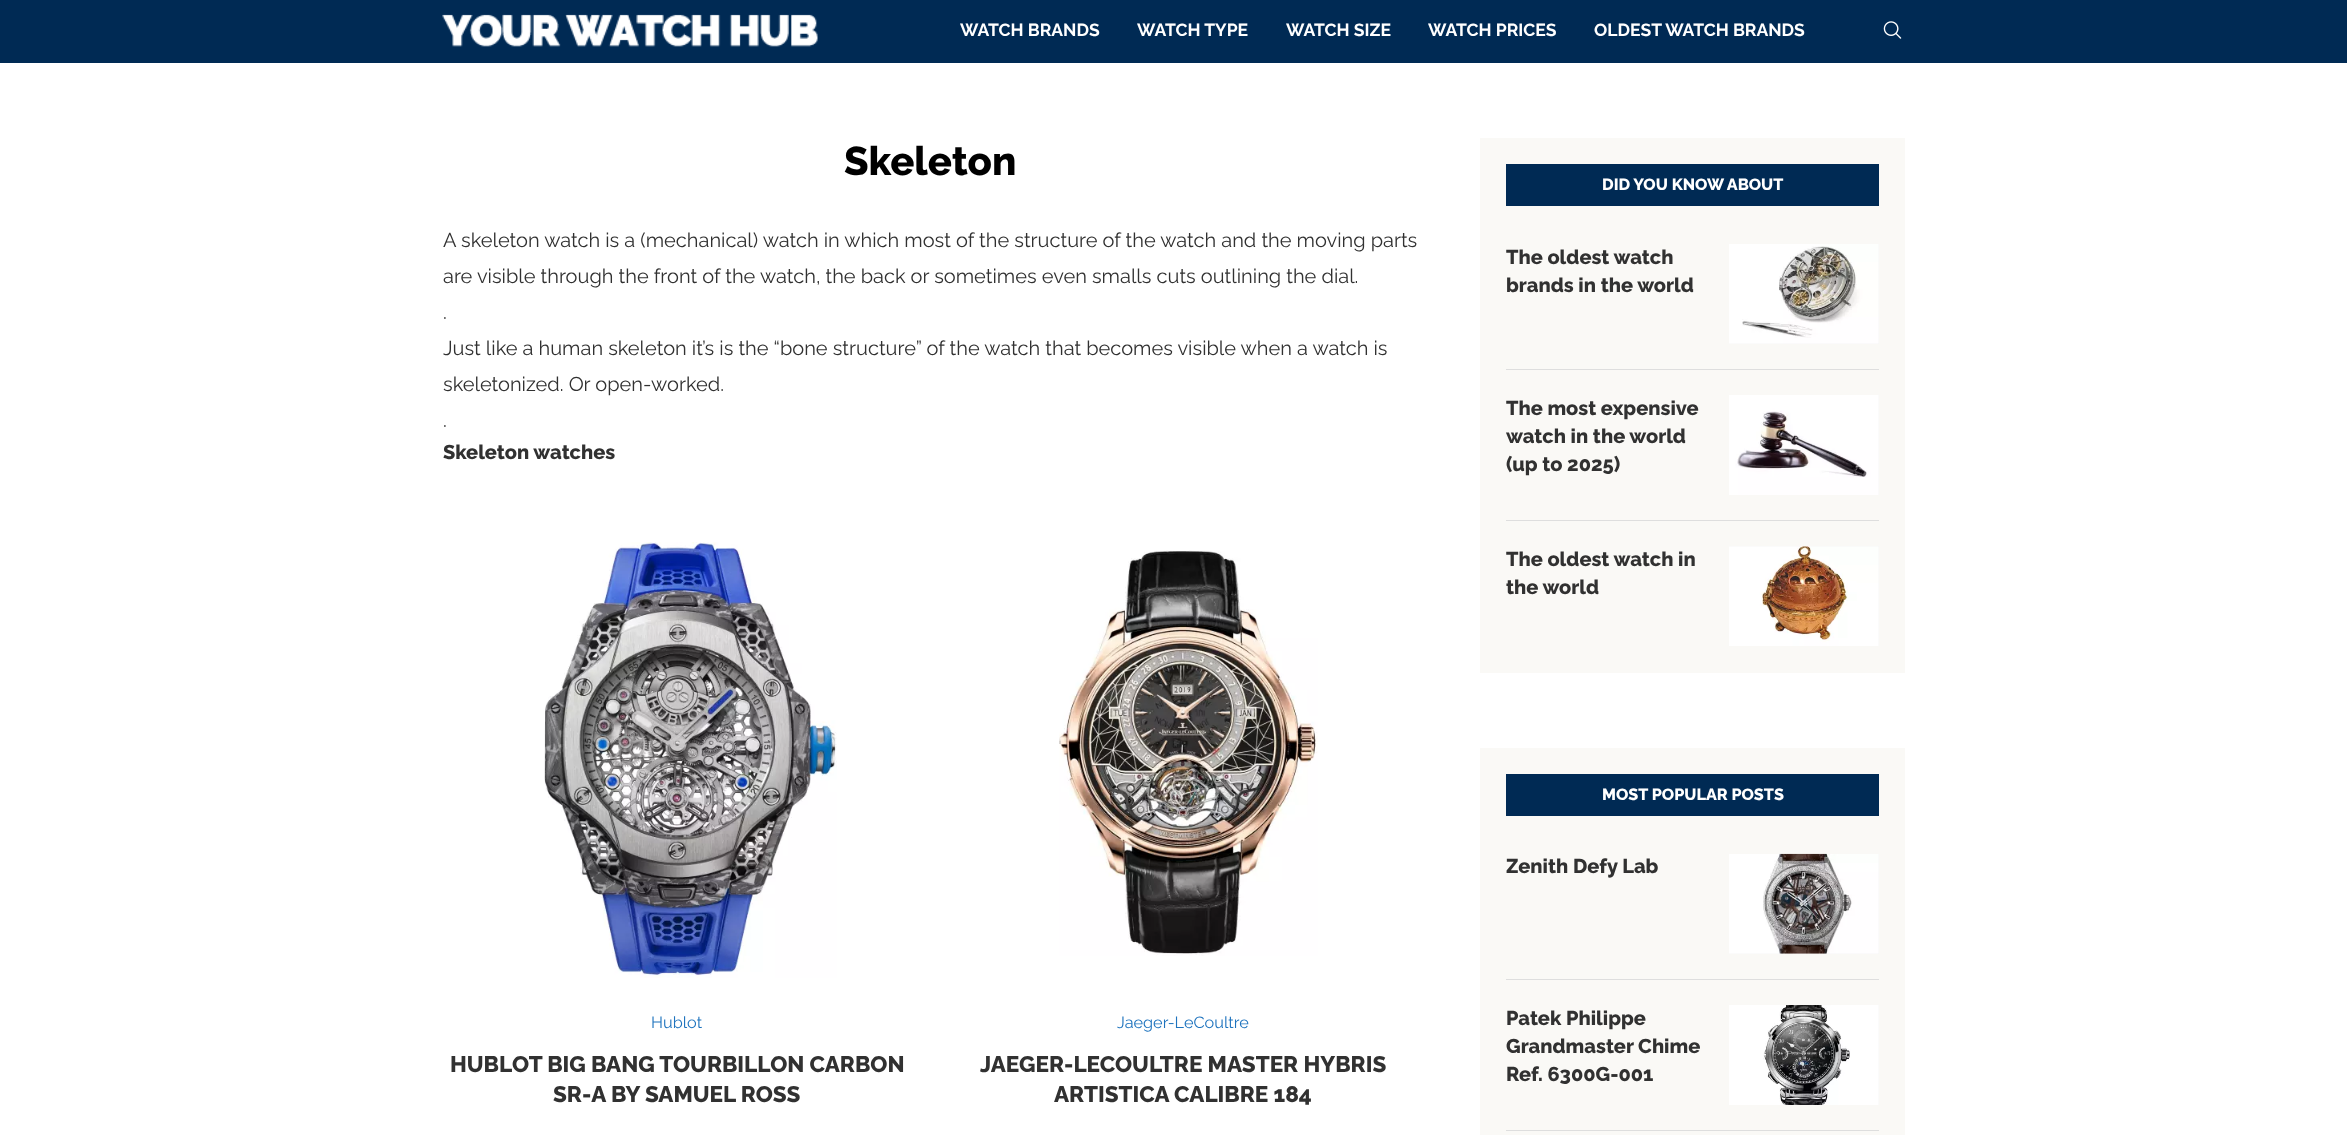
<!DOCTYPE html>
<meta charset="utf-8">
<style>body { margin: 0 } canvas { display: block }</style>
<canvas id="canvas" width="2347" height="1135"></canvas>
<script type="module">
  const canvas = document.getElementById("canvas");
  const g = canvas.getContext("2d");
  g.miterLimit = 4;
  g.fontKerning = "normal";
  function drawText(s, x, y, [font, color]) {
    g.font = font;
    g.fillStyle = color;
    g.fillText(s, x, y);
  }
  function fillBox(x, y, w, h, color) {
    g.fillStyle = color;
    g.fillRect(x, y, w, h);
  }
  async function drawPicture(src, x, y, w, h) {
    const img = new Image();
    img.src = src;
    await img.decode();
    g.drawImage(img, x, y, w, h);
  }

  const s1 = ["bold 17.5px Raleway", "#FFFFFF"];
  const s2 = ["800 40px Raleway", "#000000"];
  const s3 = ["20px Raleway", "#313131"];
  const s4 = ["800 20px Raleway", "#313131"];
  const s5 = ["16.25px Raleway", "#1E73BE"];
  const s6 = ["800 22.5px Raleway", "#313131"];
  const s7 = ["800 16.25px Raleway", "#FFFFFF"];

  fillBox(0, 0, 2347, 1135, "#FFFFFF");
  fillBox(0, 0, 2347, 63, "#002A54");
  await drawPicture("pic1.png", 442, 14, 376, 33);
  drawText("WATCH BRANDS", 960, 36, s1);
  drawText("WATCH TYPE", 1137, 36, s1);
  drawText("WATCH SIZE", 1286, 36, s1);
  drawText("WATCH PRICES", 1428, 36, s1);
  drawText("OLDEST WATCH BRANDS", 1594, 36, s1);
  await drawPicture("pic2.png", 1883, 21, 19, 18);
  drawText("Skeleton", 844, 175, s2);
  drawText("A skeleton watch is a (mechanical) watch in which most of the structure of the watch and the moving parts", 443, 247, s3);
  drawText("are visible through the front of the watch, the back or sometimes even smalls cuts outlining the dial.", 443, 283, s3);
  drawText(".", 443, 319, s3);
  drawText("Just like a human skeleton it’s is the “bone structure” of the watch that becomes visible when a watch is", 443, 355, s3);
  drawText("skeletonized. Or open-worked.", 443, 391, s3);
  drawText(".", 443, 427, s3);
  drawText("Skeleton watches", 443, 459, s4);
  await drawPicture("pic3.png", 544, 542, 293, 436);
  drawText("Hublot", 651, 1028, s5);
  drawText("HUBLOT BIG BANG TOURBILLON CARBON", 450, 1072, s6);
  drawText("SR-A BY SAMUEL ROSS", 553, 1102, s6);
  await drawPicture("pic4.png", 1059, 550, 259, 406);
  drawText("Jaeger-LeCoultre", 1117, 1028, s5);
  drawText("JAEGER-LECOULTRE MASTER HYBRIS", 980, 1072, s6);
  drawText("ARTISTICA CALIBRE 184", 1054, 1102, s6);
  fillBox(1480, 138, 425, 535, "#FAF9F6");
  fillBox(1506, 164, 373, 42, "#002A54");
  drawText("DID YOU KNOW ABOUT", 1602, 190, s7);
  fillBox(1506, 369, 373, 1, "#DEDEDE");
  drawText("The oldest watch", 1506, 264, s4);
  drawText("brands in the world", 1506, 292, s4);
  fillBox(1729, 244, 150, 100, "#F5F5F5");
  await drawPicture("pic5.png", 1729, 244, 150, 100);
  fillBox(1506, 520, 373, 1, "#DEDEDE");
  drawText("The most expensive", 1506, 415, s4);
  drawText("watch in the world", 1506, 443, s4);
  drawText("(up to 2025)", 1506, 471, s4);
  fillBox(1878, 395, 1, 100, "#F5F5F5");
  await drawPicture("pic6.png", 1729, 395, 150, 100);
  drawText("The oldest watch in", 1506, 566, s4);
  drawText("the world", 1506, 594, s4);
  fillBox(1729, 546, 150, 100, "#F5F5F5");
  await drawPicture("pic7.png", 1729, 546, 150, 100);
  fillBox(1480, 748, 425, 387, "#FAF9F6");
  fillBox(1506, 774, 373, 42, "#002A54");
  drawText("MOST POPULAR POSTS", 1602, 800, s7);
  fillBox(1506, 979, 373, 1, "#DEDEDE");
  drawText("Zenith Defy Lab", 1506, 873, s4);
  fillBox(1729, 854, 150, 100, "#F5F5F5");
  await drawPicture("pic8.png", 1729, 853, 150, 101);
  fillBox(1506, 1130, 373, 1, "#DEDEDE");
  drawText("Patek Philippe", 1506, 1025, s4);
  drawText("Grandmaster Chime", 1506, 1053, s4);
  drawText("Ref. 6300G-001", 1506, 1081, s4);
  fillBox(1878, 1005, 1, 100, "#F5F5F5");
  await drawPicture("pic9.png", 1729, 1005, 150, 100);
</script>
